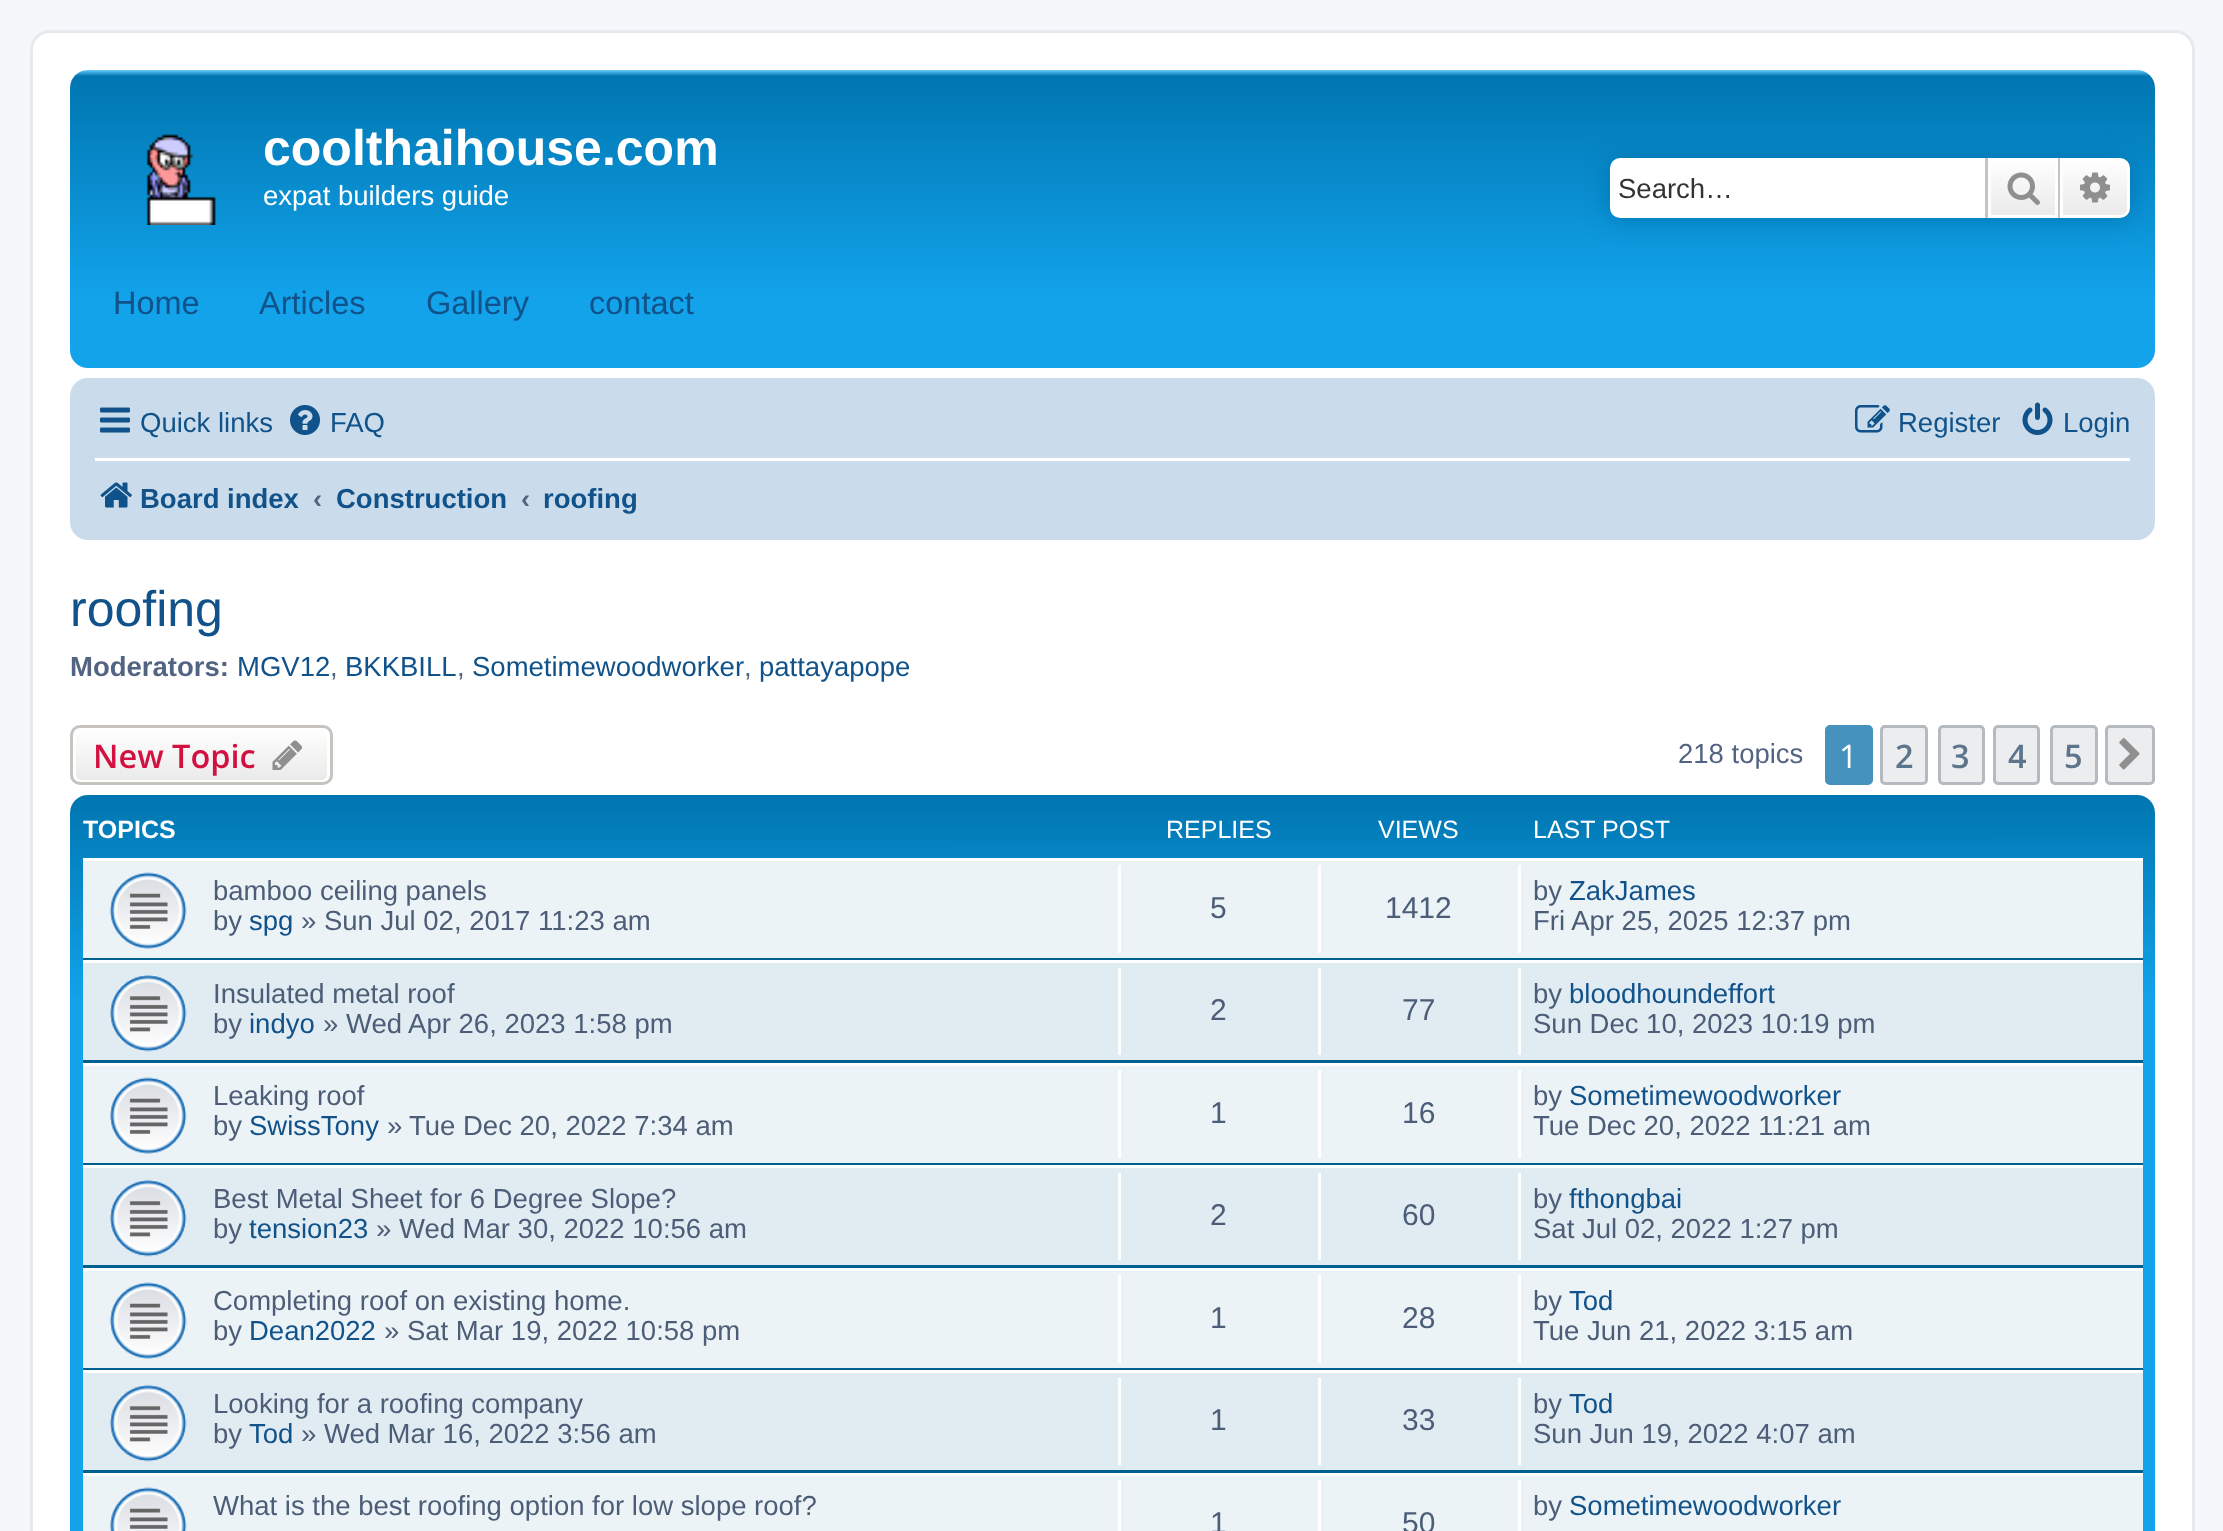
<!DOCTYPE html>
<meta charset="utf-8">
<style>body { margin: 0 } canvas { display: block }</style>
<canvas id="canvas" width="2223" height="1531"></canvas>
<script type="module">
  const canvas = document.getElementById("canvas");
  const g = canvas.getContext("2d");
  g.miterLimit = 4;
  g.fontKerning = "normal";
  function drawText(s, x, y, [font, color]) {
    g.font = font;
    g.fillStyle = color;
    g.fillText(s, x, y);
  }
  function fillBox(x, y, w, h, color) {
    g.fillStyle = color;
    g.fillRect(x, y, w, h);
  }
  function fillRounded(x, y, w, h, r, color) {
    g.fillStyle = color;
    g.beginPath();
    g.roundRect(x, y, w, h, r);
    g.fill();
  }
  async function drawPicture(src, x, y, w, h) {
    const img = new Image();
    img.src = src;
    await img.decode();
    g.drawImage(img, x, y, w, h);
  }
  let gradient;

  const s1 = ["bold 50px Liberation Sans", "#FFFFFF"];
  const s2 = ["27.5px Liberation Sans", "#FFFFFF"];
  const s3 = ["27.5px Liberation Sans", "#333333"];
  const s4 = ["32.5px Liberation Sans", "#105289"];
  const s5 = ["27.5px Liberation Sans", "#105289"];
  const s6 = ["bold 27.5px Liberation Sans", "#105289"];
  const s7 = ["bold 27.5px Liberation Sans", "#536482"];
  const s8 = ["50px Liberation Sans", "#105289"];
  const s9 = ["27.5px Liberation Sans", "#536482"];
  const s10 = ["600 32.5px Open Sans", "#D31141"];
  const s11 = ["32.5px Open Sans", "#FFFFFF"];
  const s12 = ["600 32.5px Open Sans", "#5C758C"];
  const s13 = ["bold 25px Liberation Sans", "#FFFFFF"];
  const s14 = ["25px Liberation Sans", "#FFFFFF"];
  const s15 = ["27.5px Liberation Sans", "#4C5D77"];
  const s16 = ["30px Liberation Sans", "#4C5D77"];

  fillBox(0, 0, 2223, 1531, "#F5F7FA");
  g.fillStyle = "#FFFFFF";
  g.beginPath();
  g.roundRect(31.5, 31.5, 2162, 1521, 18.5);
  g.fill();
  g.strokeStyle = "#E6E9ED";
  g.lineWidth = 3;
  g.stroke();
  gradient = g.createLinearGradient(1113, 70, 1113, 368);
  gradient.addColorStop(0, "#6ACEFF");
  gradient.addColorStop(0.02, "#0076B1");
  gradient.addColorStop(0.77, "#12A3EB");
  gradient.addColorStop(1, "#12A3EB");
  g.fillStyle = gradient;
  g.beginPath();
  g.roundRect(70, 70, 2085, 298, 18);
  g.fill();
  await drawPicture("pic1.png", 146, 134, 70, 91);
  drawText("coolthaihouse.com", 263, 165, s1);
  drawText("expat builders guide", 263, 205, s2);
  g.fillStyle = "#0075B0";
  g.filter = "blur(12.5px)";
  g.beginPath();
  g.roundRect(1610, 158, 520, 60, 10);
  g.fill();
  g.filter = "none";
  g.fillStyle = "#FFFFFF";
  g.beginPath();
  g.roundRect(1610, 158, 375, 60, [10, 0, 0, 10]);
  g.fill();
  drawText("Search…", 1618, 198, s3);
  gradient = g.createLinearGradient(2023, 158, 2023, 218);
  gradient.addColorStop(0, "#FFFFFF");
  gradient.addColorStop(1, "#E9E9E9");
  g.fillStyle = gradient;
  g.fillRect(1991, 161, 64, 54);
  g.strokeStyle = "#FFFFFF";
  g.strokeRect(1989.5, 159.5, 67, 57);
  fillBox(2058, 158, 2, 60, "#C7C3BF");
  fillBox(1985, 158, 3, 60, "#C7C3BF");
  await drawPicture("pic2.png", 2007, 172, 33, 33);
  gradient = g.createLinearGradient(2095, 158, 2095, 218);
  gradient.addColorStop(0, "#FFFFFF");
  gradient.addColorStop(1, "#E9E9E9");
  g.fillStyle = gradient;
  g.beginPath();
  g.roundRect(2061.5, 159.5, 67, 57, [0, 8.5, 8.5, 0]);
  g.fill();
  g.stroke();
  await drawPicture("pic3.png", 2080, 172, 30, 31);
  drawText("Home", 113, 314, s4);
  drawText("Articles", 259, 314, s4);
  drawText("Gallery", 426, 314, s4);
  drawText("contact", 589, 314, s4);
  fillRounded(70, 378, 2085, 162, 18, "#CADCEB");
  await drawPicture("pic4.png", 100, 407, 30, 26);
  drawText("Quick links", 140, 432, s5);
  await drawPicture("pic5.png", 290, 405, 30, 30);
  drawText("FAQ", 330, 432, s5);
  await drawPicture("pic6.png", 1855, 405, 35, 28);
  drawText("Register", 1898, 432, s5);
  await drawPicture("pic7.png", 2022, 402, 31, 33);
  drawText("Login", 2063, 432, s5);
  fillBox(95, 458, 2035, 3, "#FFFFFF");
  await drawPicture("pic8.png", 100, 482, 32, 26);
  drawText("Board index", 140, 508, s6);
  drawText("‹", 313, 508, s7);
  drawText("Construction", 336, 508, s6);
  drawText("‹", 521, 508, s7);
  drawText("roofing", 543, 508, s6);
  drawText("roofing", 70, 626, s8);
  drawText("Moderators:", 70, 676, s7);
  drawText("MGV12", 237, 676, s5);
  drawText(",", 330, 676, s9);
  drawText("BKKBILL", 345, 676, s5);
  drawText(",", 457, 676, s9);
  drawText("Sometimewoodworker", 472, 676, s5);
  drawText(",", 744, 676, s9);
  drawText("pattayapope", 759, 676, s5);
  g.save();
  g.beginPath();
  g.roundRect(70, 725, 263, 60, 10);
  g.clip();
  gradient = g.createLinearGradient(201, 728, 201, 783);
  gradient.addColorStop(0, "#FFFFFF");
  gradient.addColorStop(1, "#E9E9E9");
  g.fillStyle = gradient;
  g.fillRect(70, 728, 263, 55);
  g.restore();
  g.beginPath();
  g.roundRect(74.5, 729.5, 254, 52, 6.5);
  g.stroke();
  g.beginPath();
  g.roundRect(71.5, 726.5, 260, 57, 8.5);
  g.strokeStyle = "#C7C3BF";
  g.stroke();
  drawText("New Topic", 93, 768, s10);
  await drawPicture("pic9.png", 272, 740, 31, 30);
  drawText("218 topics", 1678, 763, s9);
  g.fillStyle = "#4692BF";
  g.beginPath();
  g.roundRect(1826.5, 726.5, 45, 57, 3.5);
  g.fill();
  g.strokeStyle = "#4692BF";
  g.stroke();
  drawText("1", 1839, 768, s11);
  g.fillStyle = "#ECEDEE";
  g.beginPath();
  g.roundRect(1881.5, 726.5, 45, 57, 3.5);
  g.fill();
  g.strokeStyle = "#B4BAC0";
  g.stroke();
  drawText("2", 1895, 768, s12);
  g.fillStyle = "#ECEDEE";
  g.beginPath();
  g.roundRect(1939.5, 726.5, 44, 57, 3.5);
  g.fill();
  g.stroke();
  drawText("3", 1951, 768, s12);
  g.fillStyle = "#ECEDEE";
  g.beginPath();
  g.roundRect(1994.5, 726.5, 44, 57, 3.5);
  g.fill();
  g.stroke();
  drawText("4", 2008, 768, s12);
  g.fillStyle = "#ECEDEE";
  g.beginPath();
  g.roundRect(2051.5, 726.5, 45, 57, 3.5);
  g.fill();
  g.stroke();
  drawText("5", 2064, 768, s12);
  g.fillStyle = "#ECEDEE";
  g.beginPath();
  g.roundRect(2106.5, 726.5, 47, 57, 3.5);
  g.fill();
  g.stroke();
  await drawPicture("pic10.png", 2119, 738, 21, 32);
  gradient = g.createLinearGradient(1112, 795, 1113, 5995);
  gradient.addColorStop(0, "#6ACEFF");
  gradient.addColorStop(0, "#0076B1");
  gradient.addColorStop(0.04, "#12A3EB");
  gradient.addColorStop(1, "#12A3EB");
  g.fillStyle = gradient;
  g.beginPath();
  g.roundRect(70, 795, 2085, 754, 18);
  g.fill();
  g.save();
  g.beginPath();
  g.rect(83, 808, 2060, 50);
  g.clip();
  drawText("TOPICS", 83, 838, s13);
  g.restore();
  drawText("REPLIES", 1166, 838, s14);
  drawText("VIEWS", 1378, 838, s14);
  drawText("LAST POST", 1533, 838, s14);
  fillBox(83, 861, 2060, 97, "#ECF3F7");
  fillBox(83, 858, 2060, 3, "#FFFFFF");
  fillBox(83, 958, 2060, 2, "#00608F");
  await drawPicture("pic11.png", 109, 872, 78, 77);
  drawText("bamboo ceiling panels", 213, 900, s15);
  drawText("by", 213, 930, s15);
  drawText("spg", 249, 930, s5);
  drawText("» Sun Jul 02, 2017 11:23 am", 301, 930, s15);
  fillBox(1118, 865, 3, 88, "#FFFFFF");
  drawText("5", 1210, 918, s16);
  fillBox(1318, 865, 3, 88, "#FFFFFF");
  drawText("1412", 1385, 918, s16);
  fillBox(1518, 865, 3, 88, "#FFFFFF");
  drawText("by", 1533, 900, s15);
  drawText("ZakJames", 1569, 900, s5);
  drawText("Fri Apr 25, 2025 12:37 pm", 1533, 930, s15);
  fillBox(83, 963, 2060, 97, "#E1EBF2");
  fillBox(83, 960, 2060, 3, "#FFFFFF");
  fillBox(83, 1060, 2060, 3, "#00608F");
  await drawPicture("pic12.png", 109, 974, 78, 78);
  drawText("Insulated metal roof", 213, 1003, s15);
  drawText("by", 213, 1033, s15);
  drawText("indyo", 249, 1033, s5);
  drawText("» Wed Apr 26, 2023 1:58 pm", 323, 1033, s15);
  fillBox(1118, 968, 3, 87, "#FFFFFF");
  drawText("2", 1210, 1020, s16);
  fillBox(1318, 968, 3, 87, "#FFFFFF");
  drawText("77", 1402, 1020, s16);
  fillBox(1518, 968, 3, 87, "#FFFFFF");
  drawText("by", 1533, 1003, s15);
  drawText("bloodhoundeffort", 1569, 1003, s5);
  drawText("Sun Dec 10, 2023 10:19 pm", 1533, 1033, s15);
  fillBox(83, 1066, 2060, 97, "#ECF3F7");
  fillBox(83, 1063, 2060, 3, "#FFFFFF");
  fillBox(83, 1163, 2060, 2, "#00608F");
  await drawPicture("pic11.png", 109, 1077, 78, 77);
  drawText("Leaking roof", 213, 1105, s15);
  drawText("by", 213, 1135, s15);
  drawText("SwissTony", 249, 1135, s5);
  drawText("»", 387, 1135, s15);
  drawText("Tue Dec 20, 2022 7:34 am", 409, 1135, s15);
  fillBox(1118, 1070, 3, 88, "#FFFFFF");
  drawText("1", 1210, 1123, s16);
  fillBox(1318, 1070, 3, 88, "#FFFFFF");
  drawText("16", 1402, 1123, s16);
  fillBox(1518, 1070, 3, 88, "#FFFFFF");
  drawText("by", 1533, 1105, s15);
  drawText("Sometimewoodworker", 1569, 1105, s5);
  drawText("Tue Dec 20, 2022 11:21 am", 1533, 1135, s15);
  fillBox(83, 1168, 2060, 97, "#E1EBF2");
  fillBox(83, 1165, 2060, 3, "#FFFFFF");
  fillBox(83, 1265, 2060, 3, "#00608F");
  await drawPicture("pic12.png", 109, 1179, 78, 78);
  drawText("Best Metal Sheet for 6 Degree Slope?", 213, 1208, s15);
  drawText("by", 213, 1238, s15);
  drawText("tension23", 249, 1238, s5);
  drawText("» Wed Mar 30, 2022 10:56 am", 376, 1238, s15);
  fillBox(1118, 1173, 3, 87, "#FFFFFF");
  drawText("2", 1210, 1225, s16);
  fillBox(1318, 1173, 3, 87, "#FFFFFF");
  drawText("60", 1402, 1225, s16);
  fillBox(1518, 1173, 3, 87, "#FFFFFF");
  drawText("by", 1533, 1208, s15);
  drawText("fthongbai", 1569, 1208, s5);
  drawText("Sat Jul 02, 2022 1:27 pm", 1533, 1238, s15);
  fillBox(83, 1271, 2060, 97, "#ECF3F7");
  fillBox(83, 1268, 2060, 3, "#FFFFFF");
  fillBox(83, 1368, 2060, 2, "#00608F");
  await drawPicture("pic11.png", 109, 1282, 78, 77);
  drawText("Completing roof on existing home.", 213, 1310, s15);
  drawText("by", 213, 1340, s15);
  drawText("Dean2022", 249, 1340, s5);
  drawText("» Sat Mar 19, 2022 10:58 pm", 384, 1340, s15);
  fillBox(1118, 1275, 3, 88, "#FFFFFF");
  drawText("1", 1210, 1328, s16);
  fillBox(1318, 1275, 3, 88, "#FFFFFF");
  drawText("28", 1402, 1328, s16);
  fillBox(1518, 1275, 3, 88, "#FFFFFF");
  drawText("by", 1533, 1310, s15);
  drawText("Tod", 1569, 1310, s5);
  drawText("Tue Jun 21, 2022 3:15 am", 1533, 1340, s15);
  fillBox(83, 1373, 2060, 97, "#E1EBF2");
  fillBox(83, 1370, 2060, 3, "#FFFFFF");
  fillBox(83, 1470, 2060, 3, "#00608F");
  await drawPicture("pic12.png", 109, 1384, 78, 78);
  drawText("Looking for a roofing company", 213, 1413, s15);
  drawText("by", 213, 1443, s15);
  drawText("Tod", 249, 1443, s5);
  drawText("» Wed Mar 16, 2022 3:56 am", 301, 1443, s15);
  fillBox(1118, 1378, 3, 87, "#FFFFFF");
  drawText("1", 1210, 1430, s16);
  fillBox(1318, 1378, 3, 87, "#FFFFFF");
  drawText("33", 1402, 1430, s16);
  fillBox(1518, 1378, 3, 87, "#FFFFFF");
  drawText("by", 1533, 1413, s15);
  drawText("Tod", 1569, 1413, s5);
  drawText("Sun Jun 19, 2022 4:07 am", 1533, 1443, s15);
  fillBox(83, 1476, 2060, 55, "#ECF3F7");
  fillBox(83, 1473, 2060, 3, "#FFFFFF");
  await drawPicture("pic13.png", 109, 1487, 78, 44);
  drawText("What is the best roofing option for low slope roof?", 213, 1515, s15);
  fillBox(1118, 1480, 3, 51, "#FFFFFF");
  drawText("1", 1210, 1533, s16);
  fillBox(1318, 1480, 3, 51, "#FFFFFF");
  drawText("50", 1402, 1533, s16);
  fillBox(1518, 1480, 3, 51, "#FFFFFF");
  drawText("by", 1533, 1515, s15);
  drawText("Sometimewoodworker", 1569, 1515, s5);
</script>
